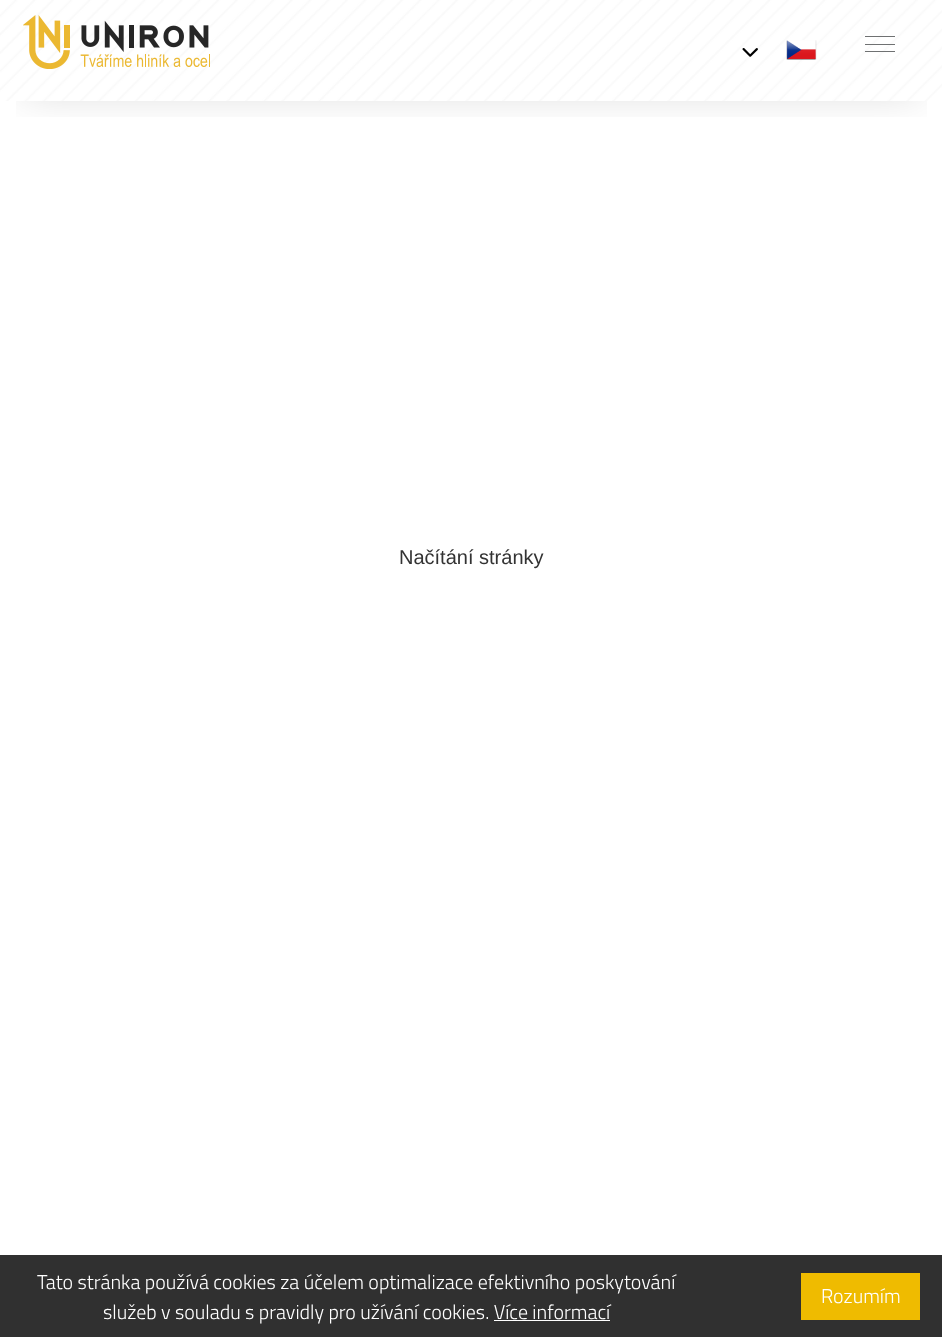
<!DOCTYPE html>
<meta charset="utf-8">
<style>body { margin: 0 } canvas { display: block }</style>
<canvas id="canvas" width="942" height="1337"></canvas>
<script type="module">
  const canvas = document.getElementById("canvas");
  const g = canvas.getContext("2d");
  g.miterLimit = 4;
  g.fontKerning = "normal";
  function drawText(s, x, y, [font, color]) {
    g.font = font;
    g.fillStyle = color;
    g.fillText(s, x, y);
  }
  function fillBox(x, y, w, h, color) {
    g.fillStyle = color;
    g.fillRect(x, y, w, h);
  }
  async function drawPicture(src, x, y, w, h) {
    const img = new Image();
    img.src = src;
    await img.decode();
    g.drawImage(img, x, y, w, h);
  }

  const s1 = ["20px Liberation Sans", "#333333"];
  const s2 = ["300 20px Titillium", "#FFFFFF"];

  fillBox(0, 0, 942, 1337, "#FFFFFF");
  g.save();
  g.beginPath();
  g.rect(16, 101, 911, 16);
  g.clip();
  g.fillStyle = "rgba(0, 0, 0, 0.18)";
  g.filter = "blur(22.5px)";
  g.beginPath();
  g.rect(23, 34, 897, 56);
  g.fill();
  g.filter = "none";
  g.restore();
  await drawPicture("pic1.png", 0, 0, 942, 101);
  await drawPicture("pic2.png", 23, 15, 187, 54);
  await drawPicture("pic3.png", 742, 48, 16, 9);
  await drawPicture("pic4.png", 786, 40, 31, 20);
  fillBox(865, 36, 30, 1, "#6F7172");
  fillBox(865, 44, 30, 1, "#6F7172");
  fillBox(865, 51, 30, 1, "#6F7172");
  drawText("Načítání stránky", 399, 564, s1);
  fillBox(0, 1255, 942, 82, "#303030");
  drawText("Tato stránka používá cookies za účelem optimalizace efektivního poskytování", 37, 1289, s2);
  drawText("služeb v souladu s pravidly pro užívání cookies. Více informací", 103, 1319, s2);
  fillBox(494, 1320, 116, 1, "#FFFFFF");
  fillBox(801, 1273, 119, 47, "#EFBB00");
  drawText("Rozumím", 821, 1303, s2);
</script>
